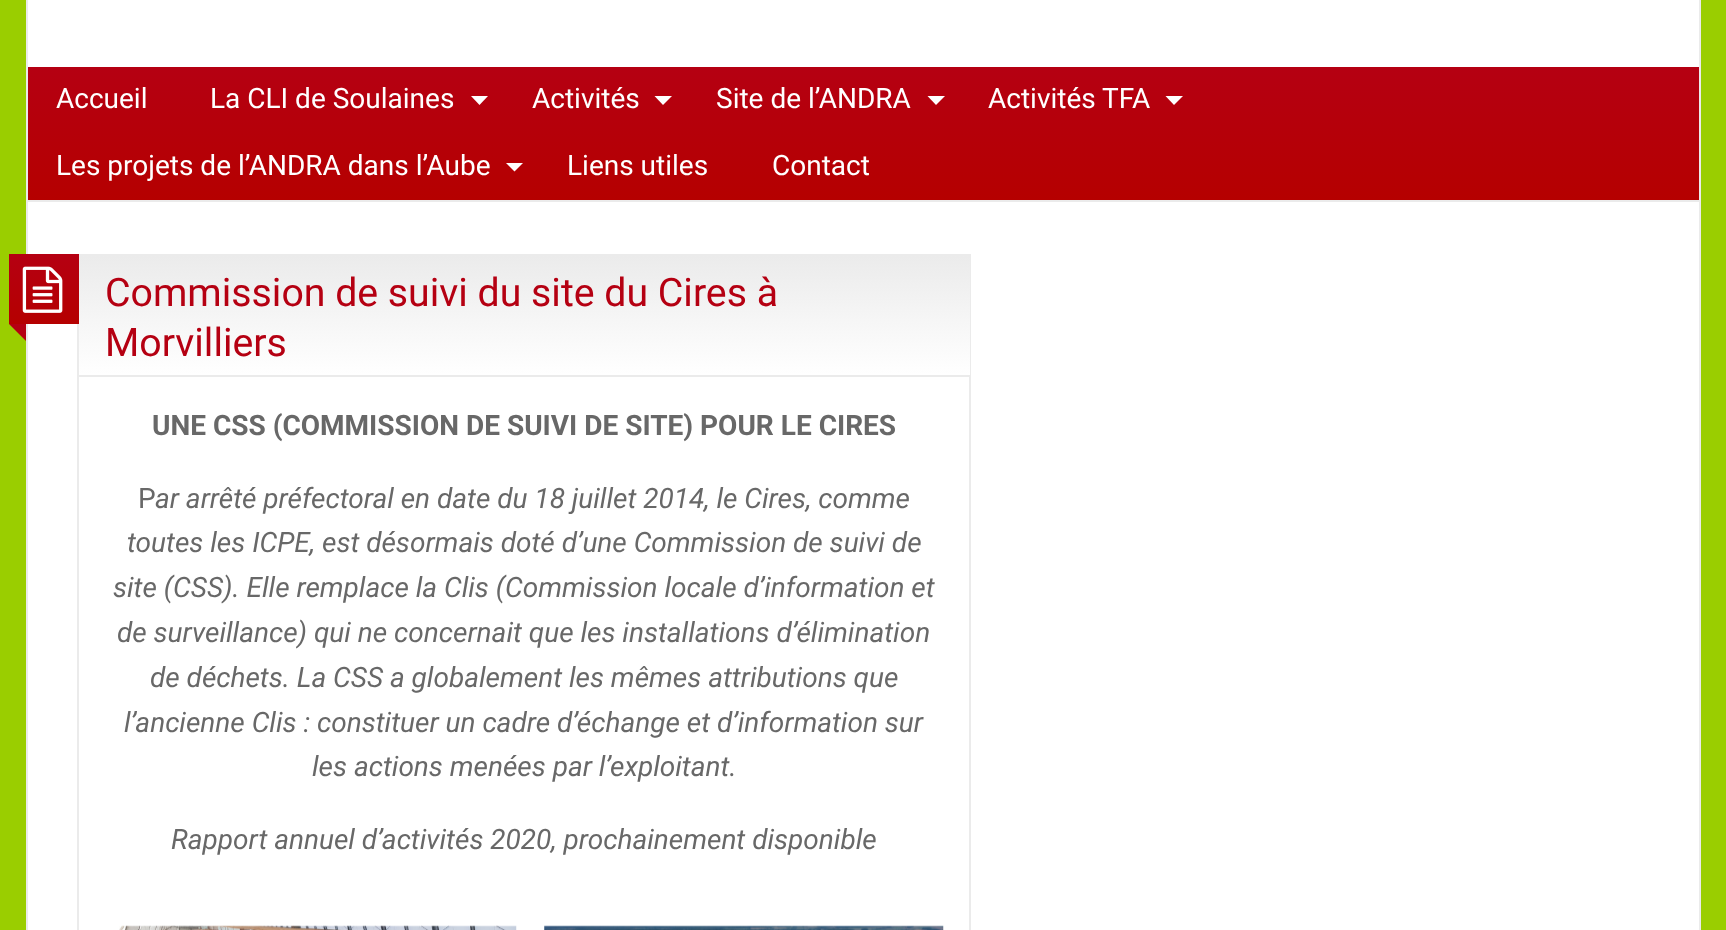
<!DOCTYPE html>
<meta charset="utf-8">
<style>body { margin: 0 } canvas { display: block }</style>
<canvas id="canvas" width="1726" height="930"></canvas>
<script type="module">
  const canvas = document.getElementById("canvas");
  const g = canvas.getContext("2d");
  g.miterLimit = 4;
  g.fontKerning = "normal";
  function drawText(s, x, y, [font, color]) {
    g.font = font;
    g.fillStyle = color;
    g.fillText(s, x, y);
  }
  function fillBox(x, y, w, h, color) {
    g.fillStyle = color;
    g.fillRect(x, y, w, h);
  }
  async function drawPicture(src, x, y, w, h) {
    const img = new Image();
    img.src = src;
    await img.decode();
    g.drawImage(img, x, y, w, h);
  }
  let gradient;

  const s1 = ["28px Roboto", "#FFFFFF"];
  const s2 = ["39.25px Roboto", "#B50012"];
  const s3 = ["bold 28px Roboto", "#686868"];
  const s4 = ["28px Roboto", "#686868"];
  const s5 = ["italic 28px Roboto", "#686868"];

  fillBox(0, 0, 1726, 930, "#9ACE00");
  g.fillStyle = "#FFFFFF";
  g.beginPath();
  g.rect(27, -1, 1673, 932);
  g.fill();
  g.strokeStyle = "#EBEBEB";
  g.lineWidth = 2;
  g.stroke();
  gradient = g.createLinearGradient(28, 67, 28, 200);
  gradient.addColorStop(0, "#B50012");
  gradient.addColorStop(1, "#B50000");
  g.fillStyle = gradient;
  g.fillRect(28, 67, 1671, 133);
  drawText("Accueil", 56, 108, s1);
  drawText("La CLI de Soulaines", 210, 108, s1);
  g.beginPath();
  g.moveTo(471, 96);
  g.lineTo(488, 96);
  g.lineTo(479.5, 105);
  g.closePath();
  g.fill();
  drawText("Activités", 532, 108, s1);
  g.beginPath();
  g.moveTo(654.5, 96);
  g.lineTo(672, 96);
  g.lineTo(663, 105);
  g.closePath();
  g.fill();
  drawText("Site de l’ANDRA", 716, 108, s1);
  g.beginPath();
  g.moveTo(927.5, 96);
  g.lineTo(945, 96);
  g.lineTo(936, 105);
  g.closePath();
  g.fill();
  drawText("Activités TFA", 988, 108, s1);
  g.beginPath();
  g.moveTo(1165.5, 96);
  g.lineTo(1183, 96);
  g.lineTo(1174, 105);
  g.closePath();
  g.fill();
  drawText("Les projets de l’ANDRA dans l’Aube", 56, 175, s1);
  g.beginPath();
  g.moveTo(506, 163);
  g.lineTo(523, 163);
  g.lineTo(514.5, 171.5);
  g.closePath();
  g.fill();
  drawText("Liens utiles", 567, 175, s1);
  drawText("Contact", 772, 175, s1);
  fillBox(28, 200, 1671, 2, "#EBEBEB");
  g.strokeRect(78, 255, 892, 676);
  gradient = g.createLinearGradient(9, 254, 9, 324);
  gradient.addColorStop(0, "#B50012");
  gradient.addColorStop(1, "#B50000");
  g.fillStyle = gradient;
  g.fillRect(9, 254, 70, 70);
  await drawPicture("pic1.png", 22, 266, 41, 47);
  g.fillStyle = "#B50012";
  g.beginPath();
  g.moveTo(9, 324);
  g.lineTo(26, 324);
  g.lineTo(26, 341);
  g.closePath();
  g.fill();
  gradient = g.createLinearGradient(79, 256, 79, 375);
  gradient.addColorStop(0, "#EBEBEB");
  gradient.addColorStop(1, "#FFFFFF");
  g.fillStyle = gradient;
  g.fillRect(79, 256, 891, 119);
  fillBox(79, 375, 891, 2, "#EBEBEB");
  drawText("Commission de suivi du site du Cires à", 105, 306, s2);
  drawText("Morvilliers", 105, 356, s2);
  drawText("UNE CSS (COMMISSION DE SUIVI DE SITE) POUR LE CIRES", 152, 435, s3);
  drawText("P", 138, 508, s4);
  drawText("ar arrêté préfectoral en date du 18 juillet 2014, le Cires, comme", 155, 508, s5);
  drawText("toutes les ICPE, est désormais doté d’une Commission de suivi de", 127, 552, s5);
  drawText("site (CSS). Elle remplace la Clis (Commission locale d’information et", 113, 597, s5);
  drawText("de surveillance) qui ne concernait que les installations d’élimination", 117, 642, s5);
  drawText("de déchets. La CSS a globalement les mêmes attributions que", 150, 687, s5);
  drawText("l’ancienne Clis : constituer un cadre d’échange et d’information sur", 124, 732, s5);
  drawText("les actions menées par l’exploitant.", 312, 776, s5);
  drawText("Rapport annuel d’activités 2020, prochainement disponible", 171, 849, s5);
  await drawPicture("pic2.png", 119, 925, 398, 5);
  await drawPicture("pic3.png", 544, 925, 400, 5);
</script>
